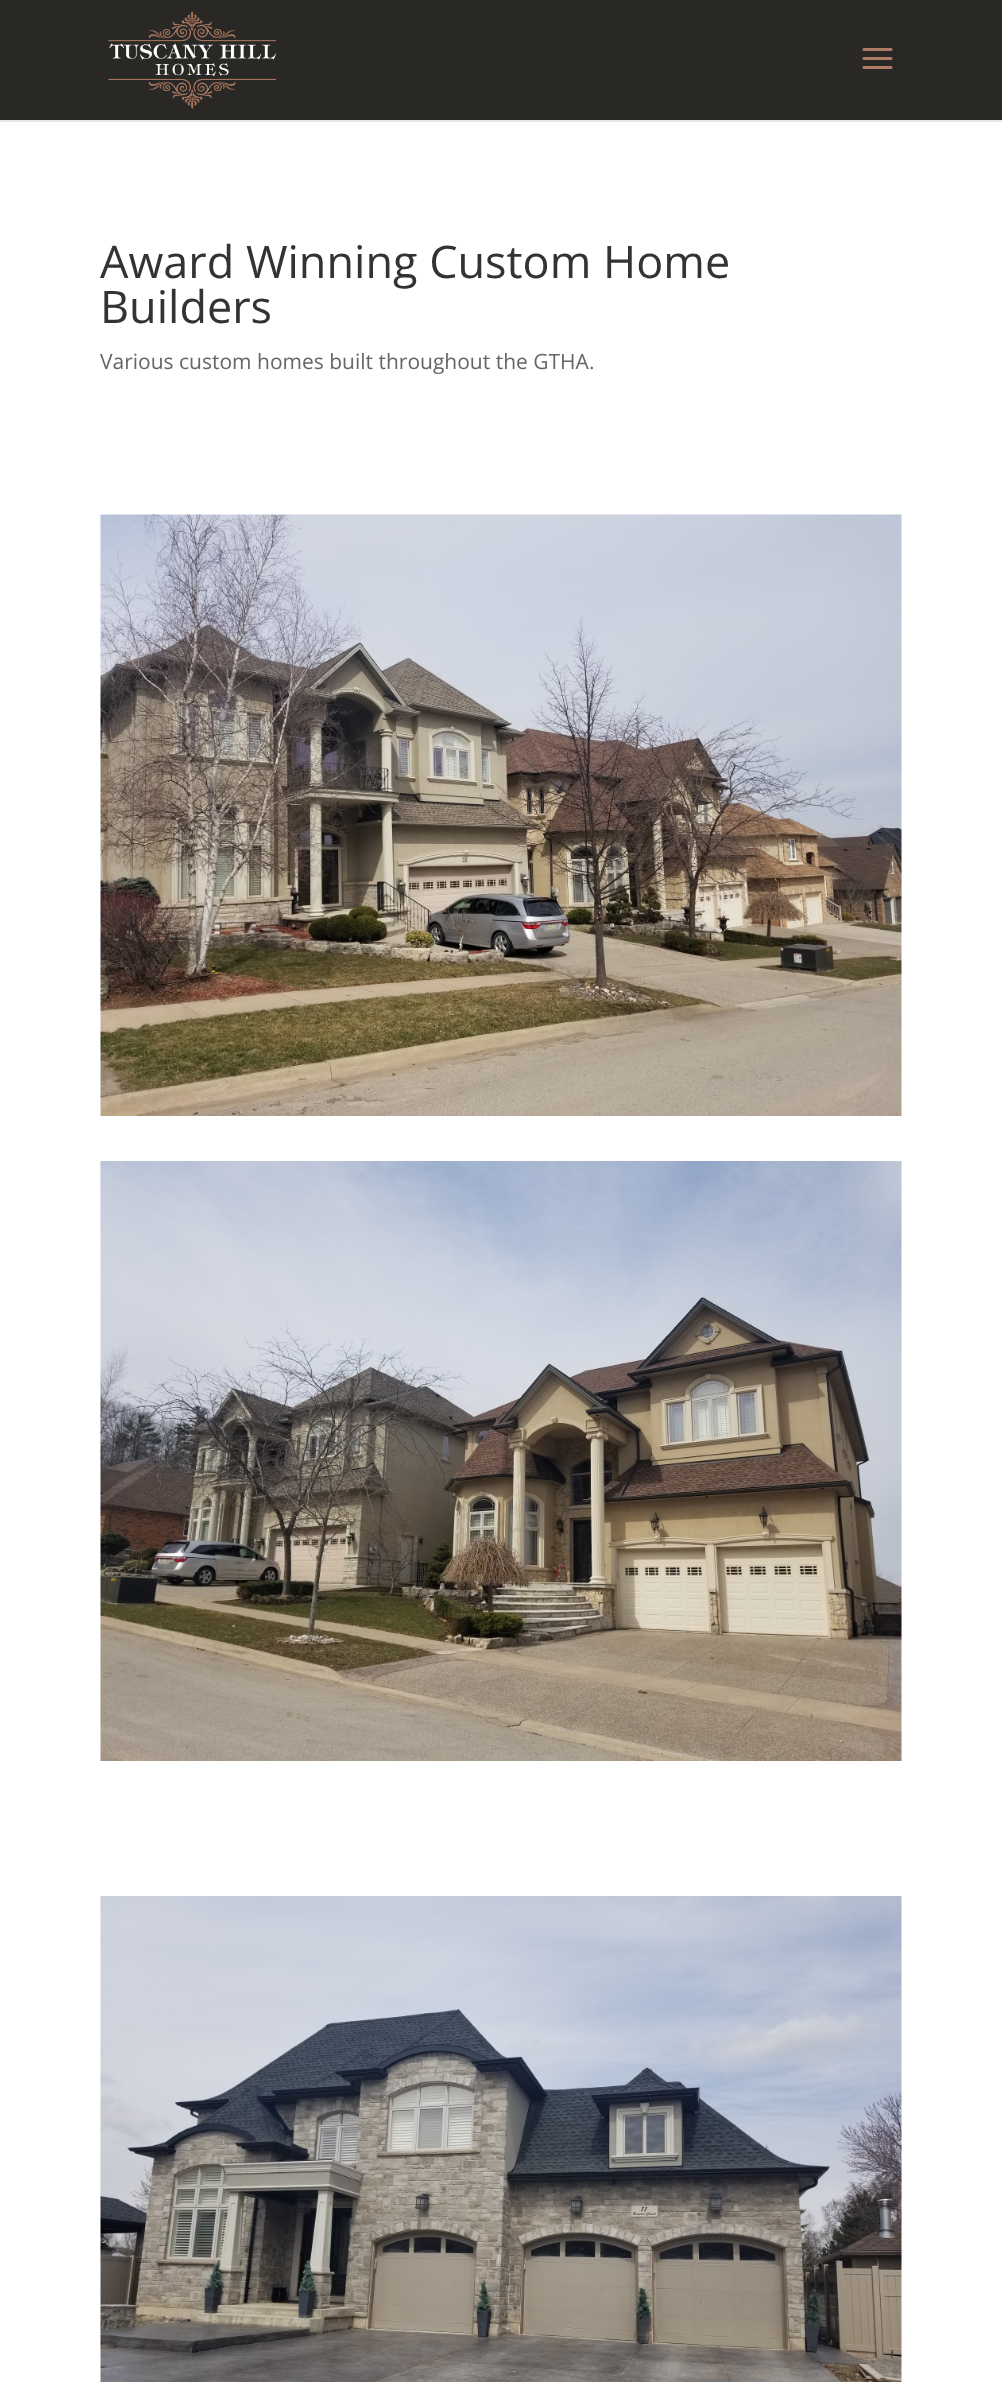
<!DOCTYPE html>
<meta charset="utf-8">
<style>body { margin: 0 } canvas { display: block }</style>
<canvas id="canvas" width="1002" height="2382"></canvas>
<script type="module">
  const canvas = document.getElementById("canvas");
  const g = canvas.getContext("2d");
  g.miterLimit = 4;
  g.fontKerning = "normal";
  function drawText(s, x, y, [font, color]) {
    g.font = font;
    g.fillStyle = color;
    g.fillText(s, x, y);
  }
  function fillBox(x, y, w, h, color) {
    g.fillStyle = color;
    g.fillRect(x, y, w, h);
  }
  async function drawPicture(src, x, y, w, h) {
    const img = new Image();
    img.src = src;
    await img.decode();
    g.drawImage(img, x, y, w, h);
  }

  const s1 = ["45px Open Sans", "#333333"];
  const s2 = ["21px Open Sans", "#666666"];

  fillBox(0, 0, 1002, 2382, "#FFFFFF");
  fillBox(0, 120, 1002, 2, "#E6E6E6");
  fillBox(0, 0, 1002, 120, "#2A2824");
  await drawPicture("pic1.png", 108, 11, 169, 98);
  await drawPicture("pic2.png", 862, 48, 31, 21);
  drawText("Award Winning Custom Home", 100, 278, s1);
  drawText("Builders", 100, 323, s1);
  drawText("Various custom homes built throughout the GTHA.", 100, 369, s2);
  await drawPicture("pic3.png", 100, 514, 802, 602);
  await drawPicture("pic4.png", 100, 1161, 802, 600);
  await drawPicture("pic5.png", 100, 1896, 802, 486);
</script>
